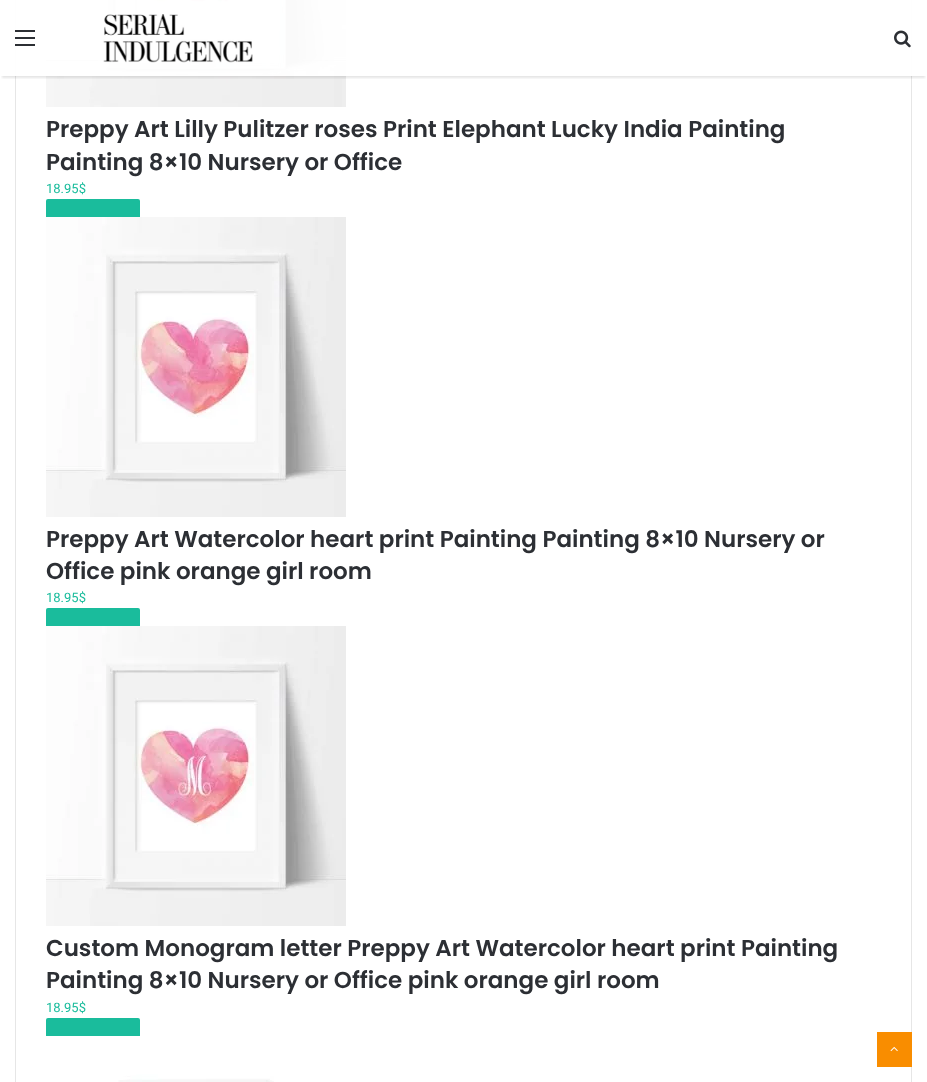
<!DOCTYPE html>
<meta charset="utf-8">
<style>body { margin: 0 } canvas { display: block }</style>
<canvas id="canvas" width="927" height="1082"></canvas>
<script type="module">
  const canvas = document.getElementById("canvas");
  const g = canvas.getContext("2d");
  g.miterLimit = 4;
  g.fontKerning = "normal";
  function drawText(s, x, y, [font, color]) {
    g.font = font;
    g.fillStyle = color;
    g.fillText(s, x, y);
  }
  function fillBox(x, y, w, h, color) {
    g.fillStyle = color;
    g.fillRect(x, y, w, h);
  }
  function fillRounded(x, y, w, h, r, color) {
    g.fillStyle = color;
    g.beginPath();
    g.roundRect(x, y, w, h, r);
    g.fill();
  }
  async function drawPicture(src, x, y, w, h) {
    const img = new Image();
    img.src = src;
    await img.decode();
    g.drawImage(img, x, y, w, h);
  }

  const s1 = ["600 23px Poppins", "#2C2F34"];
  const s2 = ["13px Roboto", "#1ABC9C"];

  fillBox(0, 0, 927, 1082, "#FFFFFF");
  g.strokeStyle = "#E6E6E6";
  g.strokeRect(15.5, -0.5, 896, 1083);
  await drawPicture("pic3.png", 46, 0, 300, 107);
  g.save();
  g.beginPath();
  g.rect(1, 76, 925, 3);
  g.clip();
  g.fillStyle = "rgba(0, 0, 0, 0.1)";
  g.filter = "blur(1px)";
  g.beginPath();
  g.rect(2, 6, 923, 72);
  g.fill();
  g.filter = "none";
  g.restore();
  fillBox(15, 0, 897, 76, "rgba(255, 255, 255, 0.95)");
  fillBox(15, 37, 20, 2, "#2C2F34");
  fillBox(15, 30, 20, 2, "#2C2F34");
  fillBox(15, 44, 20, 2, "#2C2F34");
  await drawPicture("pic1.png", 103, 14, 150, 49);
  await drawPicture("pic2.png", 894, 30, 17, 18);
  drawText("Preppy Art Lilly Pulitzer roses Print Elephant Lucky India Painting", 46, 137, s1);
  drawText("Painting 8×10 Nursery or Office", 46, 170, s1);
  drawText("18.95$", 46, 193, s2);
  fillRounded(46, 199, 94, 35, 2, "#1ABC9C");
  await drawPicture("pic4.png", 46, 217, 300, 300);
  drawText("Preppy Art Watercolor heart print Painting Painting 8×10 Nursery or", 46, 547, s1);
  drawText("Office pink orange girl room", 46, 579, s1);
  drawText("18.95$", 46, 602, s2);
  fillRounded(46, 608, 94, 35, 2, "#1ABC9C");
  await drawPicture("pic5.png", 46, 626, 300, 300);
  drawText("Custom Monogram letter Preppy Art Watercolor heart print Painting", 46, 956, s1);
  drawText("Painting 8×10 Nursery or Office pink orange girl room", 46, 988, s1);
  drawText("18.95$", 46, 1012, s2);
  fillRounded(46, 1018, 94, 35, 2, "#1ABC9C");
  await drawPicture("pic6.png", 46, 1036, 228, 46);
  fillBox(877, 1032, 35, 35, "#F98D00");
  await drawPicture("pic7.png", 890, 1046, 8, 6);
</script>
